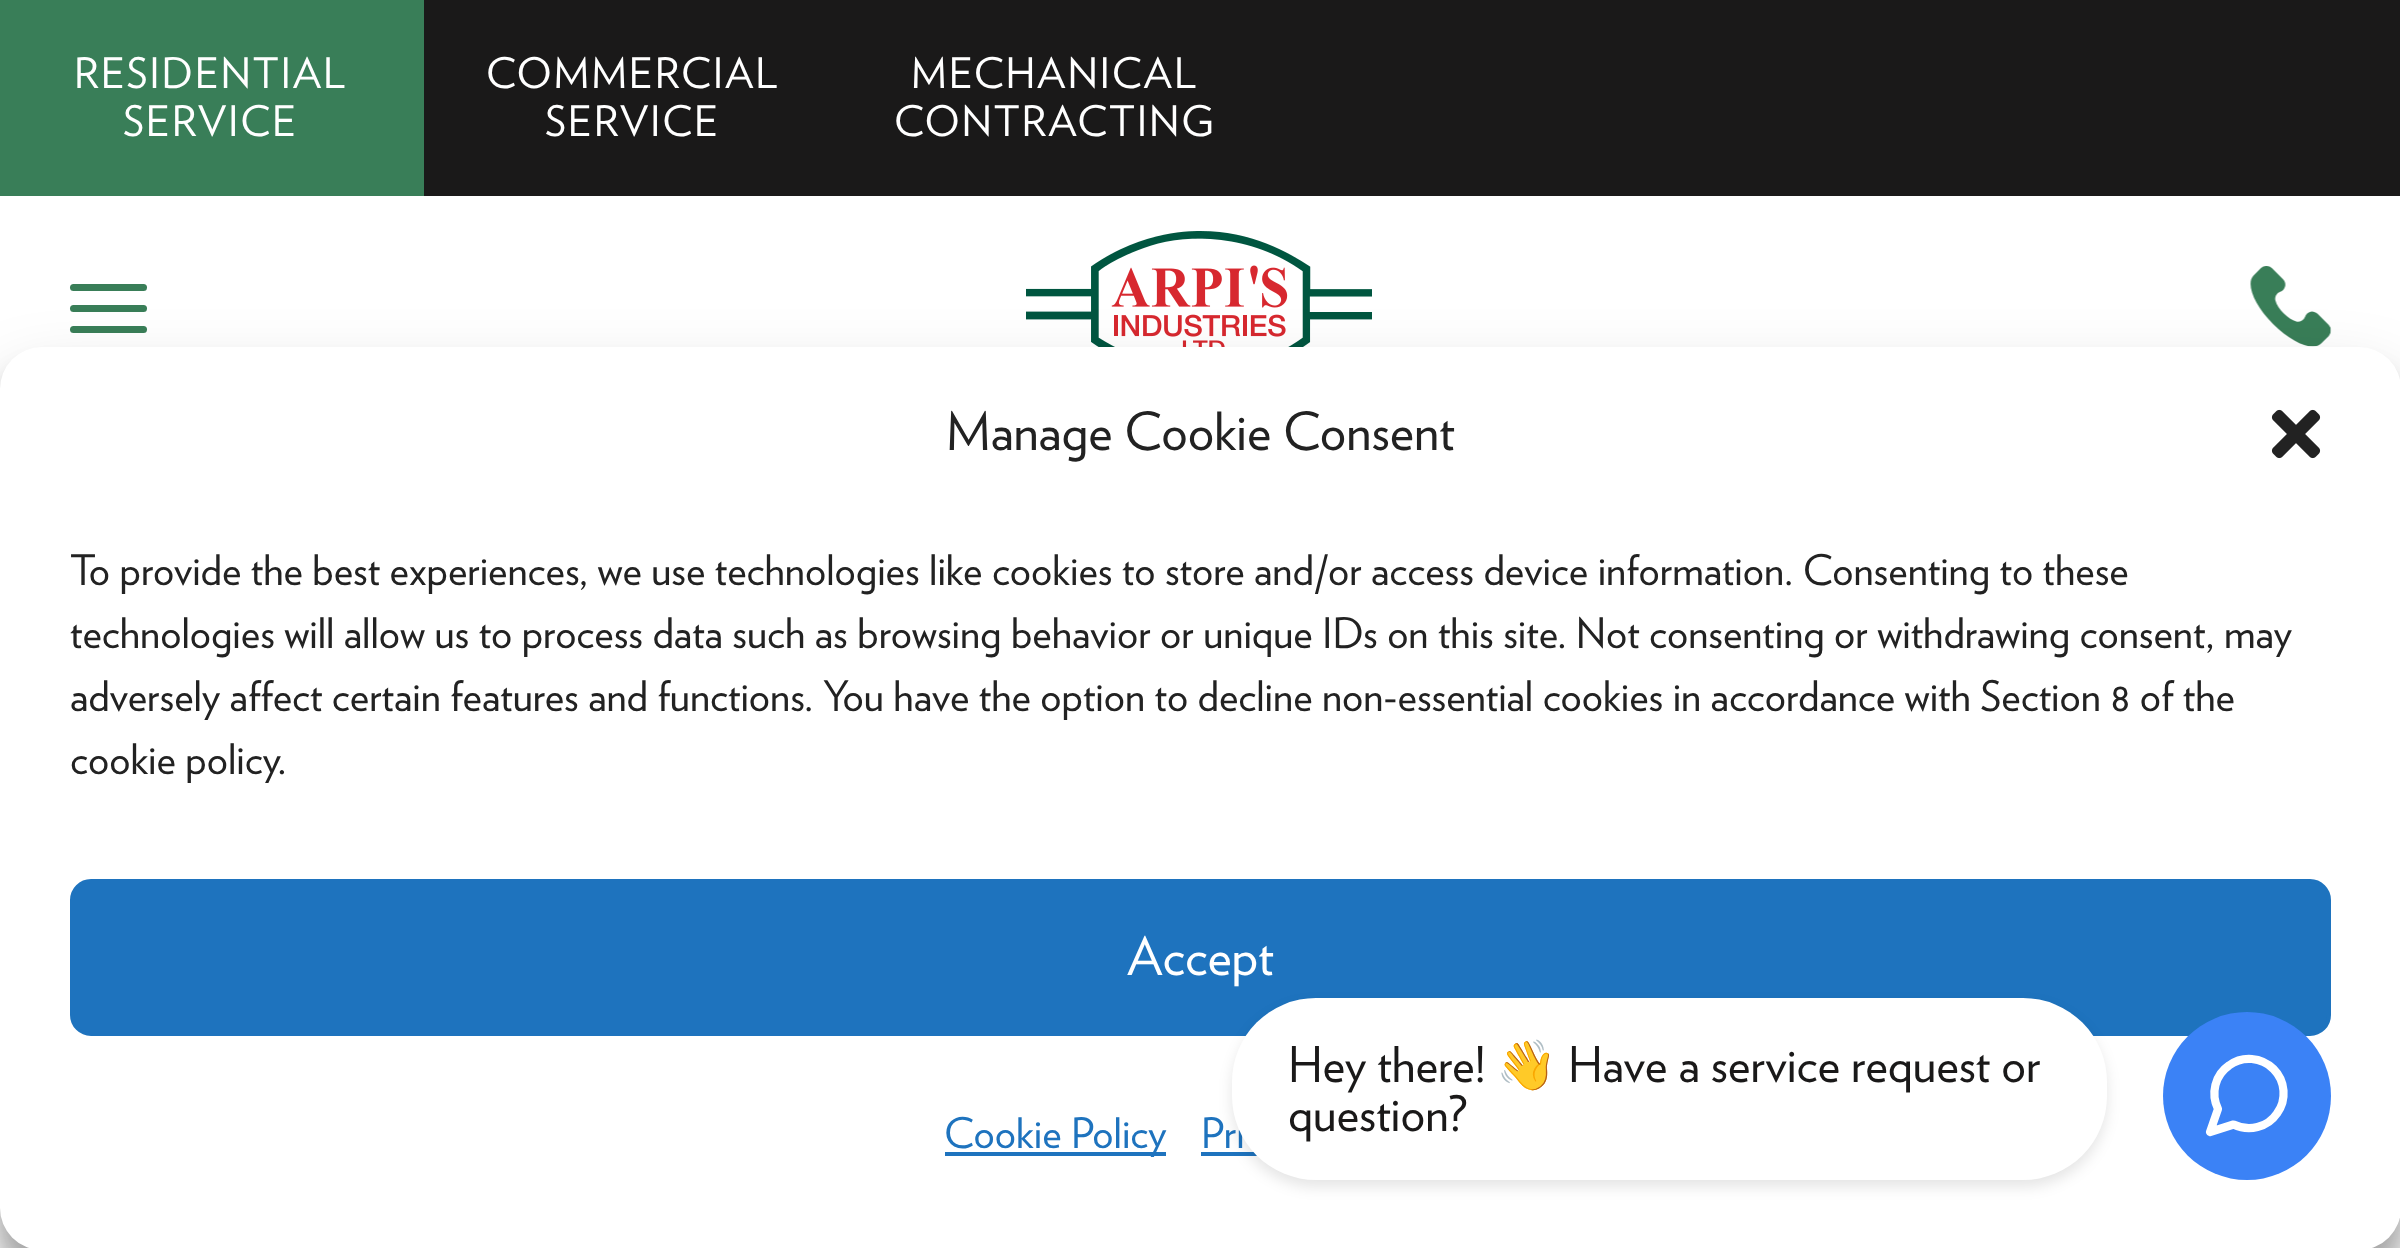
<!DOCTYPE html>
<meta charset="utf-8">
<style>body { margin: 0 } canvas { display: block }</style>
<canvas id="canvas" width="2400" height="1248"></canvas>
<script type="module">
  const canvas = document.getElementById("canvas");
  const g = canvas.getContext("2d");
  g.miterLimit = 4;
  g.fontKerning = "normal";
  function drawText(s, x, y, [font, color]) {
    g.font = font;
    g.fillStyle = color;
    g.fillText(s, x, y);
  }
  function fillBox(x, y, w, h, color) {
    g.fillStyle = color;
    g.fillRect(x, y, w, h);
  }
  function fillRounded(x, y, w, h, r, color) {
    g.fillStyle = color;
    g.beginPath();
    g.roundRect(x, y, w, h, r);
    g.fill();
  }
  async function drawPicture(src, x, y, w, h) {
    const img = new Image();
    img.src = src;
    await img.decode();
    g.drawImage(img, x, y, w, h);
  }

  const s1 = ["42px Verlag", "#FFFFFF"];
  const s2 = ["52.5px Verlag", "#222222"];
  const s3 = ["42px Verlag", "#222222"];
  const s4 = ["52.5px Verlag", "#FFFFFF"];
  const s5 = ["42px Verlag", "#1E73BE"];
  const s6 = ["49px Verlag", "#1A1919"];
  const s7 = ["49px Noto Color Emoji", "#1A1919"];

  fillBox(0, 0, 2400, 1248, "#FFFFFF");
  fillBox(424, 0, 1976, 196, "#1A1919");
  fillBox(0, 0, 424, 196, "#397E58");
  g.letterSpacing = "1.75px";
  drawText("RESIDENTIAL", 74, 88, s1);
  drawText("SERVICE", 123, 136, s1);
  drawText("COMMERCIAL", 486, 88, s1);
  drawText("SERVICE", 545, 136, s1);
  drawText("MECHANICAL", 911, 88, s1);
  drawText("CONTRACTING", 894, 136, s1);
  fillRounded(70, 284, 77, 7, 3.5, "#397E58");
  fillRounded(70, 305, 77, 7, 3.5, "#397E58");
  fillRounded(70, 326, 77, 7, 3.5, "#397E58");
  await drawPicture("pic1.png", 1026, 231, 346, 116);
  await drawPicture("pic2.png", 2250, 266, 82, 81);
  fillBox(0, 1208, 2400, 40, "#F9F9F9");
  g.fillStyle = "rgba(0, 0, 0, 0.23)";
  g.filter = "blur(10.5px)";
  g.beginPath();
  g.roundRect(0, 368, 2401, 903, 42);
  g.fill();
  g.filter = "none";
  g.fillStyle = "rgba(0, 0, 0, 0.19)";
  g.filter = "blur(35px)";
  g.beginPath();
  g.roundRect(0, 382, 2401, 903, 42);
  g.fill();
  g.filter = "none";
  fillRounded(0, 347, 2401, 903, 42, "#FFFFFF");
  g.letterSpacing = "0px";
  drawText("Manage Cookie Consent", 946, 450, s2);
  await drawPicture("pic3.png", 2271, 409, 50, 50);
  drawText("To provide the best experiences, we use technologies like cookies to store and/or access device information. Consenting to these", 70, 585, s3);
  drawText("technologies will allow us to process data such as browsing behavior or unique IDs on this site. Not consenting or withdrawing consent, may", 70, 648, s3);
  drawText("adversely affect certain features and functions. You have the option to decline non-essential cookies in accordance with Section 8 of the", 70, 711, s3);
  drawText("cookie policy.", 70, 774, s3);
  g.fillStyle = "#1E73BE";
  g.beginPath();
  g.roundRect(72, 881, 2257, 153, 19);
  g.fill();
  g.strokeStyle = "#1E73BE";
  g.lineWidth = 4;
  g.stroke();
  drawText("Accept", 1127, 975, s4);
  fillBox(945, 1152, 221, 4, "#1E73BE");
  drawText("Cookie Policy", 944, 1148, s5);
  drawText("Pri", 1201, 1148, s5);
  fillBox(1201, 1152, 57, 4, "#1E73BE");
  g.fillStyle = "rgba(0, 0, 0, 0.1)";
  g.filter = "blur(7px)";
  g.beginPath();
  g.roundRect(1232, 1005, 875, 182, 84);
  g.fill();
  g.filter = "none";
  fillRounded(1232, 998, 875, 182, 84, "#FFFFFF");
  drawText("Hey there!", 1288, 1082, s6);
  drawText("👋", 1496, 1082, s7);
  drawText("Have a service request or", 1568, 1082, s6);
  drawText("question?", 1288, 1131, s6);
  g.fillStyle = "#3B82F6";
  g.beginPath();
  g.arc(2247, 1096, 84, 0, Math.PI * 2);
  g.fill();
  g.beginPath();
  g.moveTo(2210, 1132);
  g.lineTo(2218, 1109);
  g.bezierCurveTo(2210.5, 1093.5, 2215, 1075, 2229, 1065.5);
  g.bezierCurveTo(2242.5, 1055.5, 2261.5, 1057, 2273.5, 1069);
  g.bezierCurveTo(2285.5, 1081, 2287, 1100, 2277, 1113.5);
  g.bezierCurveTo(2267.5, 1127.5, 2249, 1132, 2233.5, 1124.5);
  g.closePath();
  g.strokeStyle = "#FFFFFF";
  g.lineWidth = 8.2;
  g.lineCap = "round";
  g.lineJoin = "round";
  g.stroke();
</script>
